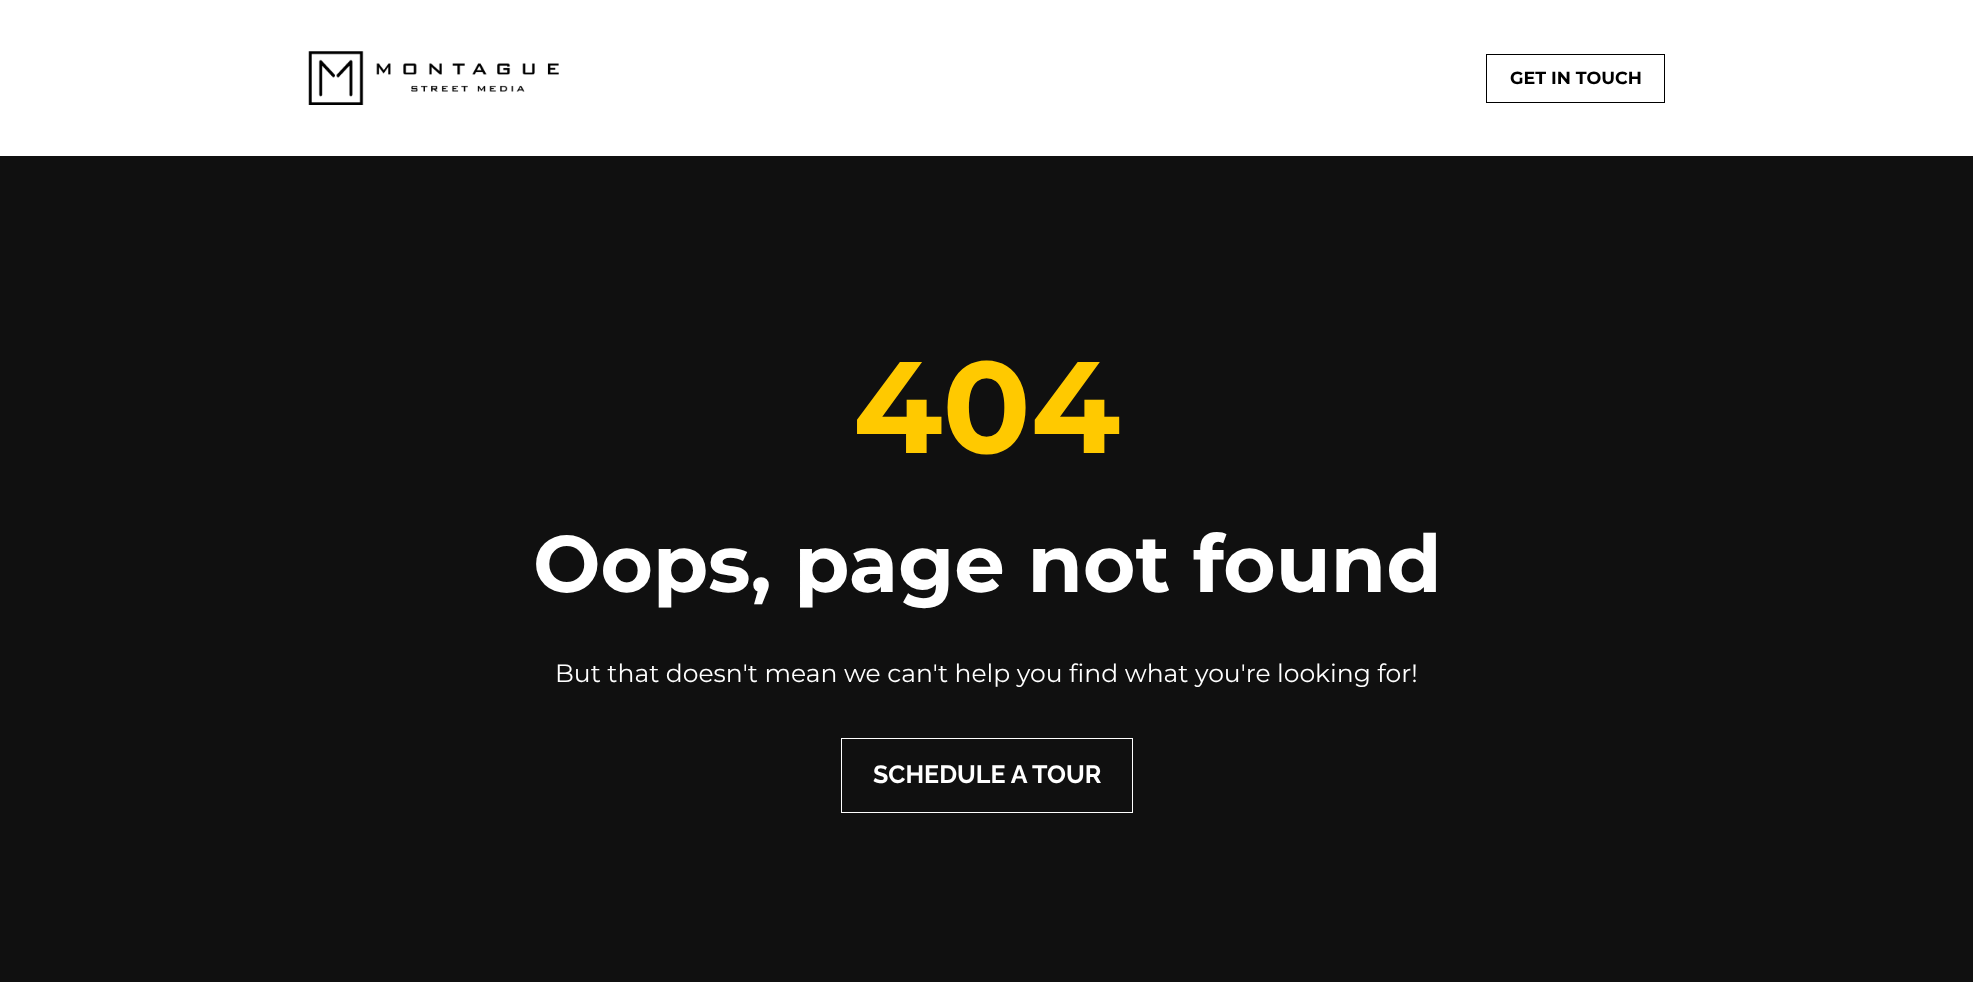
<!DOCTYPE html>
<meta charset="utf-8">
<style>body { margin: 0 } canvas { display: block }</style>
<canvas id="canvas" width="1973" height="982"></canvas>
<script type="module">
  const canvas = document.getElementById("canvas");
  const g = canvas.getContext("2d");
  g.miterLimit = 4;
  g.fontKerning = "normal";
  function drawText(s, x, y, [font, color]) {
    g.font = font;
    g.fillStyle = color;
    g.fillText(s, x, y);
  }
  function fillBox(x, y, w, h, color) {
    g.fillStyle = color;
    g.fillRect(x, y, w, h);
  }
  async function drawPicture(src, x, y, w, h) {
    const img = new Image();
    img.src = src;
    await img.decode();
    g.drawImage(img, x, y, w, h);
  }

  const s1 = ["bold 17.5px Montserrat", "#000000"];
  const s2 = ["bold 130px Montserrat", "#FFC900"];
  const s3 = ["bold 80px Montserrat", "#FFFFFF"];
  const s4 = ["25px Montserrat", "#FFFFFF"];
  const s5 = ["bold 25px Raleway", "#FFFFFF"];

  fillBox(0, 0, 1973, 982, "#FFFFFF");
  await drawPicture("pic1.png", 308, 51, 251, 54);
  g.strokeStyle = "#000000";
  g.strokeRect(1486.5, 54.5, 178, 48);
  drawText("GET IN TOUCH", 1510, 84, s1);
  fillBox(0, 156, 1973, 826, "#101010");
  drawText("404", 853, 453, s2);
  drawText("Oops, page not found", 533, 592, s3);
  drawText("But that doesn't mean we can't help you find what you're looking for!", 555, 682, s4);
  g.strokeStyle = "#FFFFFF";
  g.strokeRect(841.5, 738.5, 291, 74);
  drawText("SCHEDULE A TOUR", 873, 783, s5);
</script>
